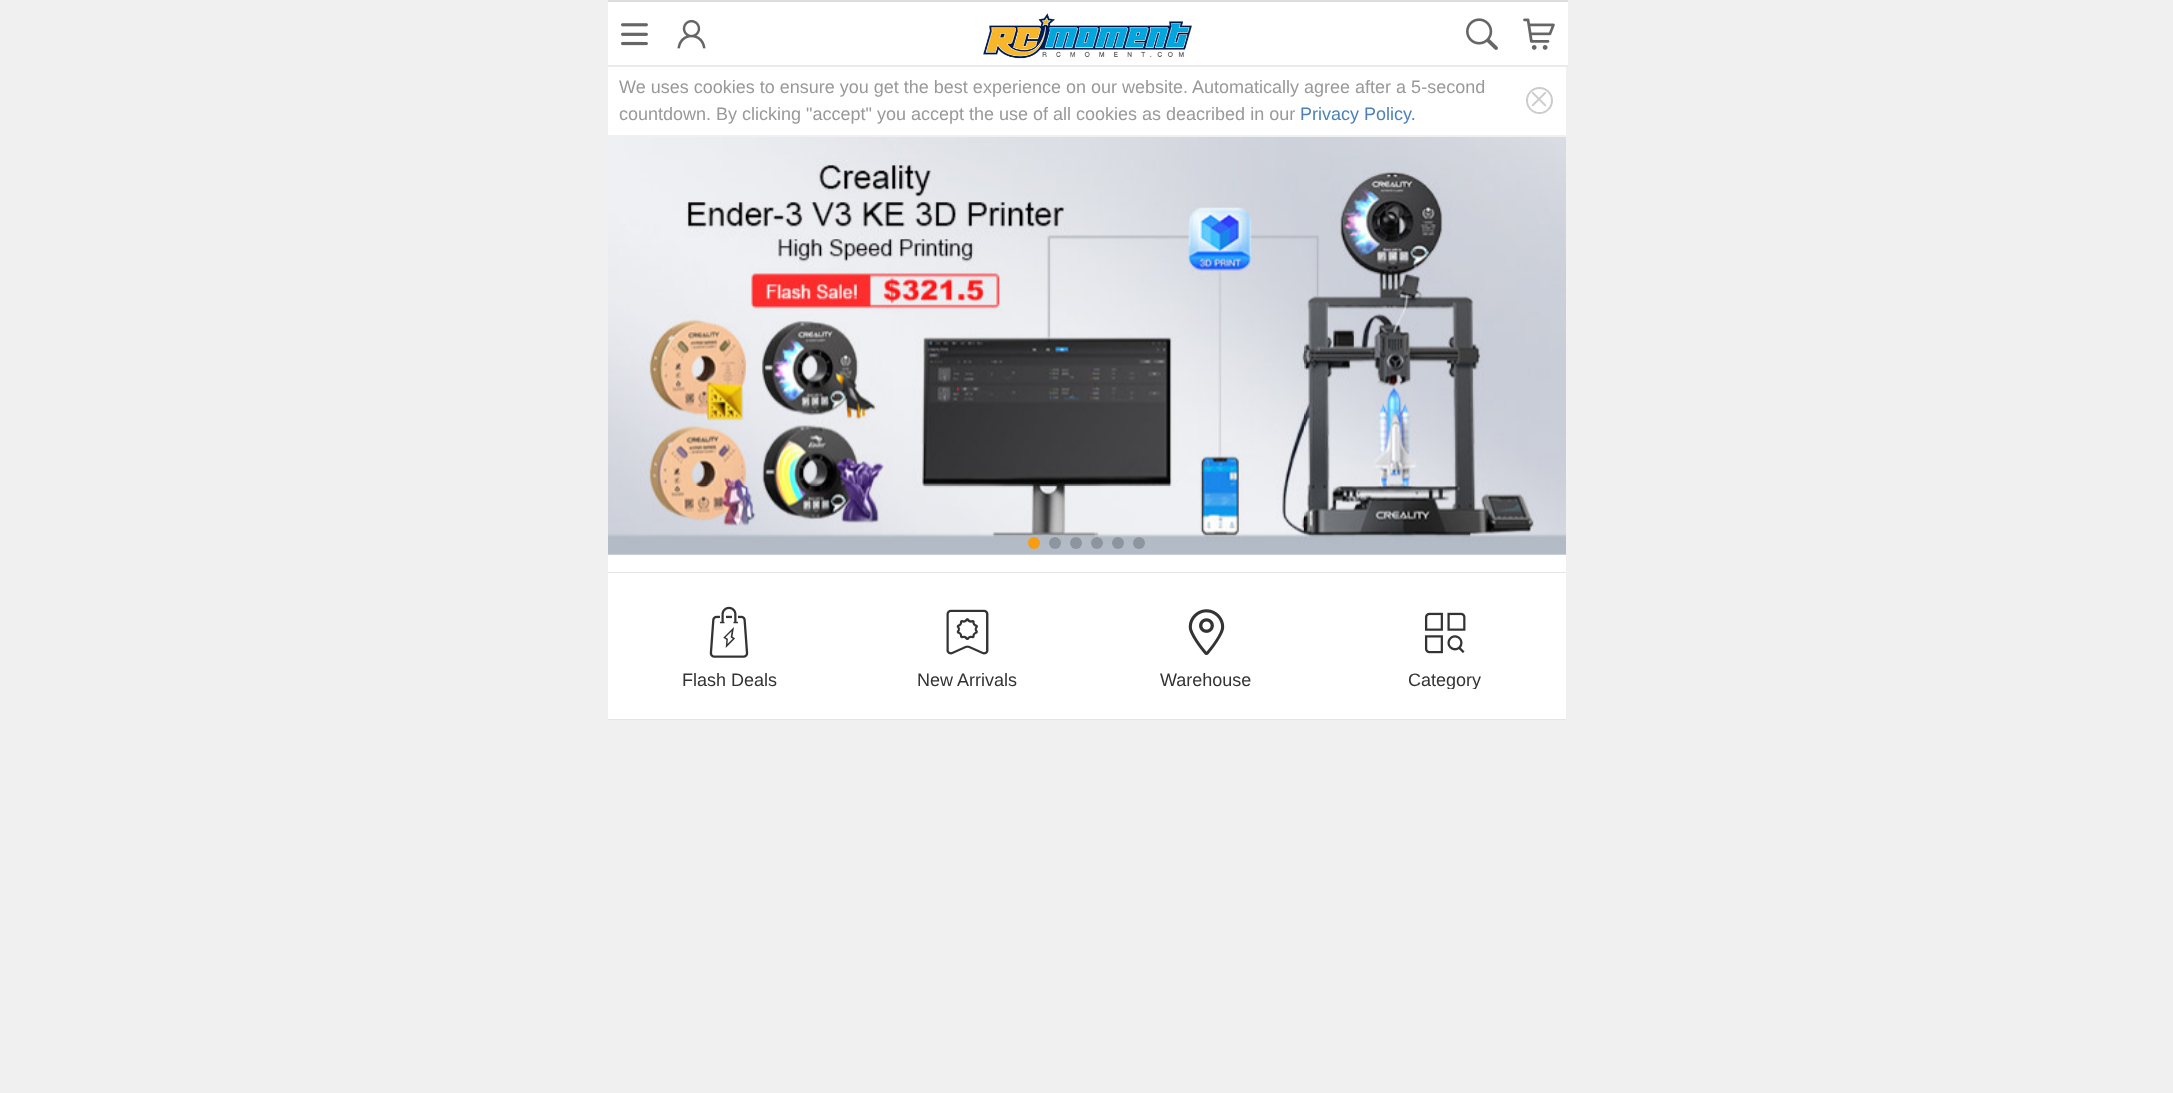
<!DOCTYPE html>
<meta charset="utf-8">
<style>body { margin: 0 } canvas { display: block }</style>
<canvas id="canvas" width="2173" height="1093"></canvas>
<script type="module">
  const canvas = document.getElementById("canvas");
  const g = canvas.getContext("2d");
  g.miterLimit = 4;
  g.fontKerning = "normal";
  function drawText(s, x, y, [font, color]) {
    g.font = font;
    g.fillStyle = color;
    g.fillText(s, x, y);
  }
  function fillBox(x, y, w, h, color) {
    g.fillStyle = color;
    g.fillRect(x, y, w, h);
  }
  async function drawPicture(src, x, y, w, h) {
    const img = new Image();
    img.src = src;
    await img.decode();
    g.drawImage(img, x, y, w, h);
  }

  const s1 = ["18px Liberation Sans", "#999999"];
  const s2 = ["18px Liberation Sans", "#4D82B8"];
  const s3 = ["18px Liberation Sans", "#333333"];

  fillBox(0, 0, 2173, 1093, "#F0F0F0");
  fillBox(608, 2, 960, 63, "#FFFFFF");
  fillBox(608, 65, 960, 2, "#EBEBEB");
  fillBox(608, 0, 960, 2, "#DDDDDD");
  await drawPicture("pic1.png", 621, 23, 27, 23);
  await drawPicture("pic2.png", 677, 19, 29, 30);
  await drawPicture("pic3.png", 983, 13, 209, 46);
  await drawPicture("pic4.png", 1466, 18, 32, 32);
  await drawPicture("pic5.png", 1523, 18, 32, 32);
  fillBox(608, 67, 958, 68, "#FFFFFF");
  drawText("We uses cookies to ensure you get the best experience on our website. Automatically agree after a 5-second", 619, 93, s1);
  drawText("countdown. By clicking \"accept\" you accept the use of all cookies as deacribed in our", 619, 120, s1);
  drawText("Privacy Policy.", 1300, 120, s2);
  g.beginPath();
  g.arc(1539.5, 100.5, 12.5, 0, Math.PI * 2);
  g.strokeStyle = "#CCCCCC";
  g.lineWidth = 2;
  g.stroke();
  await drawPicture("pic6.png", 1531, 92, 16, 15);
  fillBox(608, 554, 958, 18, "#FFFFFF");
  await drawPicture("pic7.png", 608, 137, 958, 418);
  g.fillStyle = "rgba(255, 153, 0, 0.9)";
  g.beginPath();
  g.arc(1034, 543, 6, 0, Math.PI * 2);
  g.fill();
  g.fillStyle = "rgba(0, 0, 0, 0.2)";
  g.beginPath();
  g.arc(1055, 543, 6, 0, Math.PI * 2);
  g.fill();
  g.beginPath();
  g.arc(1076, 543, 6, 0, Math.PI * 2);
  g.fill();
  g.beginPath();
  g.arc(1097, 543, 6, 0, Math.PI * 2);
  g.fill();
  g.beginPath();
  g.arc(1118, 543, 6, 0, Math.PI * 2);
  g.fill();
  g.fillStyle = "#8F959E";
  g.beginPath();
  g.arc(1139, 543, 6, 0, Math.PI * 2);
  g.fill();
  fillBox(608, 572, 958, 1, "#E5E5E5");
  fillBox(608, 719, 958, 1, "#E5E5E5");
  fillBox(608, 573, 958, 146, "#FFFFFF");
  await drawPicture("pic8.png", 709, 606, 40, 52);
  drawText("Flash Deals", 682, 686, s3);
  await drawPicture("pic9.png", 946, 609, 43, 46);
  drawText("New Arrivals", 917, 686, s3);
  await drawPicture("pic10.png", 1188, 609, 37, 46);
  drawText("Warehouse", 1160, 686, s3);
  await drawPicture("pic11.png", 1424, 612, 42, 42);
  g.save();
  g.beginPath();
  g.rect(1406, 671, 78, 18);
  g.clip();
  drawText("Category", 1408, 686, s3);
  g.restore();
</script>
